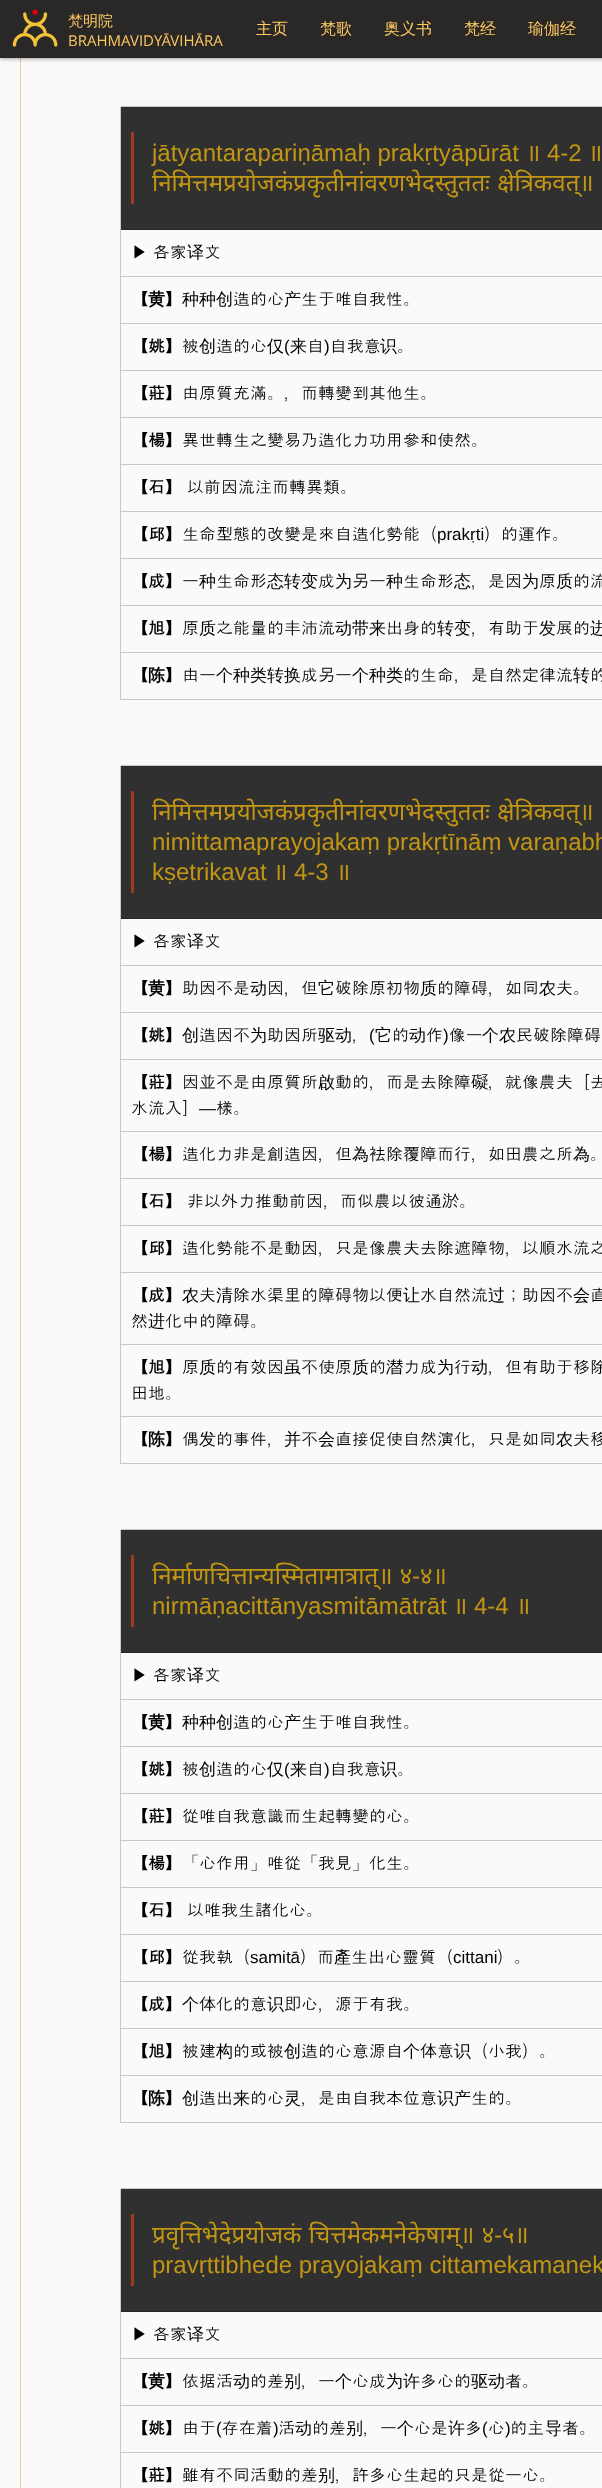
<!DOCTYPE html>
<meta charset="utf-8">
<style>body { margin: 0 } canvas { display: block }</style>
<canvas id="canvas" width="602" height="2488"></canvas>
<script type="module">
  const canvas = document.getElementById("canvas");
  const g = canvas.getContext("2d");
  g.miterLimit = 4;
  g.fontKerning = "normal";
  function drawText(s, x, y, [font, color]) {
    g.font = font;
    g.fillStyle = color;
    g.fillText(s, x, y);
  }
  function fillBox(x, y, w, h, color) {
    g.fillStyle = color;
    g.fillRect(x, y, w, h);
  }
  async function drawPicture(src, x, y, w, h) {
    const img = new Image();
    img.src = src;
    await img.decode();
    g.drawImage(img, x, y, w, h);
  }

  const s1 = ["500 15px WenQuanYi Zen Hei", "#FFC962"];
  const s2 = ["15px Open Sans", "#FFC962"];
  const s3 = ["500 16px WenQuanYi Zen Hei", "#FFC962"];
  const s4 = ["24px Liberation Sans", "#C29613"];
  const s5 = ["24px Noto Sans", "#C29613"];
  const s6 = ["17px Dotum", "#000000"];
  const s7 = ["500 17px WenQuanYi Zen Hei", "#000000"];
  const s8 = ["bold 17px Dotum", "#000000"];
  const s9 = ["bold 17px WenQuanYi Zen Hei", "#000000"];
  const s10 = ["17px Liberation Sans", "#000000"];

  fillBox(0, 0, 602, 2488, "#FAFAFA");
  g.strokeStyle = "#EDCB98";
  g.strokeRect(20.5, -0.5, 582, 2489);
  g.fillStyle = "rgba(0, 0, 0, 0.5)";
  g.filter = "blur(2.5px)";
  g.beginPath();
  g.rect(0, 0, 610, 58);
  g.fill();
  g.filter = "none";
  fillBox(0, 0, 602, 58, "#292826");
  await drawPicture("pic1.png", 12, 9, 46, 38);
  drawText("梵明院", 68, 26, s1);
  drawText("BRAHMAVIDYĀVIHĀRA", 68, 46, s2);
  drawText("主页", 256, 34, s3);
  drawText("梵歌", 320, 34, s3);
  drawText("奥义书", 384, 34, s3);
  drawText("梵经", 464, 34, s3);
  drawText("瑜伽经", 528, 34, s3);
  fillBox(121, 107, 481, 122, "#303030");
  fillBox(121, 106, 481, 1, "#C8C8C8");
  fillBox(120, 107, 1, 593, "#C8C8C8");
  fillBox(131, 132, 3, 72, "#9E3B1B");
  drawText("jātyantarapariṇāmaḥ prakṛtyāpūrāt", 152, 161, s4);
  drawText("॥", 526, 161, s5);
  drawText("4-2", 547, 161, s4);
  drawText("॥", 588, 161, s5);
  g.wordSpacing = "1px";
  drawText("निमित्तमप्रयोजकंप्रकृतीनांवरणभेदस्तुततः क्षेत्रिकवत्॥", 152, 191, s5);
  fillBox(121, 229, 481, 1, "#262626");
  g.wordSpacing = "-1px";
  drawText("▶ 各家", 131, 258, s6);
  g.wordSpacing = "0px";
  drawText("译", 187, 258, s7);
  drawText("文", 204, 258, s6);
  fillBox(121, 276, 481, 1, "#C8C8C8");
  drawText("【", 131, 305, s8);
  drawText("黄", 148, 305, s9);
  drawText("】", 165, 305, s8);
  drawText("种种创", 182, 305, s7);
  drawText("造的心", 233, 305, s6);
  drawText("产", 284, 305, s7);
  drawText("生于唯自我性。", 301, 305, s6);
  fillBox(121, 323, 481, 1, "#C8C8C8");
  drawText("【姚】", 131, 352, s8);
  drawText("被", 182, 352, s6);
  drawText("创", 199, 352, s7);
  drawText("造的心", 216, 352, s6);
  drawText("仅", 267, 352, s7);
  drawText("(", 284, 352, s10);
  drawText("来", 290, 352, s7);
  drawText("自 自我意", 307, 352, s6);
  drawText("识", 380, 352, s7);
  drawText(")", 324, 352, s10);
  drawText("。", 397, 352, s6);
  fillBox(121, 370, 481, 1, "#C8C8C8");
  drawText("【莊】", 131, 399, s8);
  drawText("由原質充滿。，而轉變到其他生。", 182, 399, s6);
  fillBox(121, 417, 481, 1, "#C8C8C8");
  drawText("【楊】", 131, 446, s8);
  drawText("異世轉生之變易乃造化力功用參和使然。", 182, 446, s6);
  fillBox(121, 464, 481, 1, "#C8C8C8");
  drawText("【石】", 131, 493, s8);
  drawText("以前因流注而轉異類。", 187, 493, s6);
  fillBox(121, 511, 481, 1, "#C8C8C8");
  drawText("【邱】", 131, 540, s8);
  drawText("生命型態的改變是來自造化勢能（", 182, 540, s6);
  drawText("prakṛti", 437, 540, s10);
  drawText("）的運作。", 484, 540, s6);
  fillBox(121, 558, 481, 1, "#C8C8C8");
  drawText("【成】", 131, 587, s8);
  drawText("一", 182, 587, s6);
  drawText("种", 199, 587, s7);
  drawText("生命形", 216, 587, s6);
  drawText("态转变", 267, 587, s7);
  drawText("成", 318, 587, s6);
  drawText("为", 335, 587, s7);
  drawText("另一", 352, 587, s6);
  drawText("种", 386, 587, s7);
  drawText("生命形", 403, 587, s6);
  drawText("态", 454, 587, s7);
  drawText("，是因", 471, 587, s6);
  drawText("为", 522, 587, s7);
  drawText("原", 539, 587, s6);
  drawText("质", 556, 587, s7);
  drawText("的流", 573, 587, s6);
  fillBox(121, 605, 481, 1, "#C8C8C8");
  drawText("【旭】", 131, 634, s8);
  drawText("原", 182, 634, s6);
  drawText("质", 199, 634, s7);
  drawText("之能量的丰沛流", 216, 634, s6);
  drawText("动带来", 335, 634, s7);
  drawText("出身的", 386, 634, s6);
  drawText("转变", 437, 634, s7);
  drawText("，有助于", 471, 634, s6);
  drawText("发", 539, 634, s7);
  drawText("展的", 556, 634, s6);
  drawText("进", 590, 634, s7);
  fillBox(121, 652, 481, 1, "#C8C8C8");
  drawText("【", 131, 681, s8);
  drawText("陈", 148, 681, s9);
  drawText("】", 165, 681, s8);
  drawText("由一", 182, 681, s6);
  drawText("个种类转换", 216, 681, s7);
  drawText("成另一", 301, 681, s6);
  drawText("个种类", 352, 681, s7);
  drawText("的生命，是自然定律流", 403, 681, s6);
  drawText("转", 573, 681, s7);
  drawText("的", 590, 681, s6);
  fillBox(121, 699, 481, 1, "#C8C8C8");
  fillBox(121, 766, 481, 152, "#303030");
  fillBox(121, 765, 481, 1, "#C8C8C8");
  fillBox(120, 766, 1, 698, "#C8C8C8");
  fillBox(131, 791, 3, 102, "#9E3B1B");
  g.wordSpacing = "1px";
  drawText("निमित्तमप्रयोजकंप्रकृतीनांवरणभेदस्तुततः क्षेत्रिकवत्॥", 152, 820, s5);
  g.wordSpacing = "0px";
  drawText("nimittamaprayojakaṃ prakṛtīnāṃ varaṇabh", 152, 850, s4);
  drawText("kṣetrikavat", 152, 880, s4);
  drawText("॥", 273, 880, s5);
  drawText("4-3", 294, 880, s4);
  drawText("॥", 336, 880, s5);
  fillBox(121, 918, 481, 1, "#262626");
  g.wordSpacing = "-1px";
  drawText("▶ 各家", 131, 947, s6);
  g.wordSpacing = "0px";
  drawText("译", 187, 947, s7);
  drawText("文", 204, 947, s6);
  fillBox(121, 965, 481, 1, "#C8C8C8");
  drawText("【", 131, 994, s8);
  drawText("黄", 148, 994, s9);
  drawText("】", 165, 994, s8);
  drawText("助因不是", 182, 994, s6);
  drawText("动", 250, 994, s7);
  drawText("因，但", 267, 994, s6);
  drawText("它", 318, 994, s7);
  drawText("破除原初物", 335, 994, s6);
  drawText("质", 420, 994, s7);
  drawText("的障碍，如同", 437, 994, s6);
  drawText("农", 539, 994, s7);
  drawText("夫。", 556, 994, s6);
  fillBox(121, 1012, 481, 1, "#C8C8C8");
  drawText("【姚】", 131, 1041, s8);
  drawText("创", 182, 1041, s7);
  drawText("造因不", 199, 1041, s6);
  drawText("为", 250, 1041, s7);
  drawText("助因所", 267, 1041, s6);
  drawText("驱动", 318, 1041, s7);
  drawText("(", 369, 1041, s10);
  drawText("它", 375, 1041, s7);
  drawText("的", 392, 1041, s6);
  drawText("动", 409, 1041, s7);
  drawText("作 像一", 426, 1041, s6);
  drawText("个农", 482, 1041, s7);
  drawText("民破除障碍", 516, 1041, s6);
  drawText("，", 352, 1041, s6);
  drawText(")", 443, 1041, s10);
  fillBox(121, 1059, 481, 1, "#C8C8C8");
  drawText("【莊】", 131, 1088, s8);
  drawText("因並不是由原質所", 182, 1088, s6);
  drawText("啟", 318, 1088, s7);
  drawText("動的，而是去除障礙，就像農夫［去", 335, 1088, s6);
  drawText("水流入］", 131, 1114, s6);
  drawText("—", 199, 1114, s10);
  drawText("樣。", 216, 1114, s6);
  fillBox(121, 1131, 481, 1, "#C8C8C8");
  drawText("【楊】", 131, 1160, s8);
  drawText("造化力非是創造因，但", 182, 1160, s6);
  drawText("為", 352, 1160, s7);
  drawText("袪除覆障而行，如田農之所", 369, 1160, s6);
  drawText("為", 573, 1160, s7);
  drawText("。", 590, 1160, s6);
  fillBox(121, 1178, 481, 1, "#C8C8C8");
  drawText("【石】", 131, 1207, s8);
  drawText("非以外力推動前因，而似農以彼通淤。", 187, 1207, s6);
  fillBox(121, 1225, 481, 1, "#C8C8C8");
  drawText("【邱】", 131, 1254, s8);
  drawText("造化勢能不是動因，只是像農夫去除遮障物，以順水流之", 182, 1254, s6);
  fillBox(121, 1272, 481, 1, "#C8C8C8");
  drawText("【成】", 131, 1301, s8);
  drawText("农", 182, 1301, s7);
  drawText("夫", 199, 1301, s6);
  drawText("清", 216, 1301, s7);
  drawText("除水渠里的障碍物以便", 233, 1301, s6);
  drawText("让", 403, 1301, s7);
  drawText("水自然流", 420, 1301, s6);
  drawText("过", 488, 1301, s7);
  drawText("；助因不", 505, 1301, s6);
  drawText("会", 573, 1301, s7);
  drawText("直", 590, 1301, s6);
  drawText("然", 131, 1327, s6);
  drawText("进", 148, 1327, s7);
  drawText("化中的障碍。", 165, 1327, s6);
  fillBox(121, 1344, 481, 1, "#C8C8C8");
  drawText("【旭】", 131, 1373, s8);
  drawText("原", 182, 1373, s6);
  drawText("质", 199, 1373, s7);
  drawText("的有效因", 216, 1373, s6);
  drawText("虽", 284, 1373, s7);
  drawText("不使原", 301, 1373, s6);
  drawText("质", 352, 1373, s7);
  drawText("的潜力成", 369, 1373, s6);
  drawText("为", 437, 1373, s7);
  drawText("行", 454, 1373, s6);
  drawText("动", 471, 1373, s7);
  drawText("，但有助于移除", 488, 1373, s6);
  drawText("田地。", 131, 1399, s6);
  fillBox(121, 1416, 481, 1, "#C8C8C8");
  drawText("【", 131, 1445, s8);
  drawText("陈", 148, 1445, s9);
  drawText("】", 165, 1445, s8);
  drawText("偶", 182, 1445, s6);
  drawText("发", 199, 1445, s7);
  drawText("的事件，", 216, 1445, s6);
  drawText("并", 284, 1445, s7);
  drawText("不", 301, 1445, s6);
  drawText("会", 318, 1445, s7);
  drawText("直接促使自然演化，只是如同", 335, 1445, s6);
  drawText("农", 556, 1445, s7);
  drawText("夫移", 573, 1445, s6);
  fillBox(121, 1463, 481, 1, "#C8C8C8");
  fillBox(121, 1530, 481, 122, "#303030");
  fillBox(121, 1529, 481, 1, "#C8C8C8");
  fillBox(120, 1530, 1, 593, "#C8C8C8");
  fillBox(131, 1555, 3, 72, "#9E3B1B");
  g.wordSpacing = "1px";
  drawText("निर्माणचित्तान्यस्मितामात्रात्॥ ४-४॥", 152, 1584, s5);
  g.wordSpacing = "0px";
  drawText("nirmāṇacittānyasmitāmātrāt", 152, 1614, s4);
  drawText("॥", 453, 1614, s5);
  drawText("4-4", 474, 1614, s4);
  drawText("॥", 516, 1614, s5);
  fillBox(121, 1652, 481, 1, "#262626");
  g.wordSpacing = "-1px";
  drawText("▶ 各家", 131, 1681, s6);
  g.wordSpacing = "0px";
  drawText("译", 187, 1681, s7);
  drawText("文", 204, 1681, s6);
  fillBox(121, 1699, 481, 1, "#C8C8C8");
  drawText("【", 131, 1728, s8);
  drawText("黄", 148, 1728, s9);
  drawText("】", 165, 1728, s8);
  drawText("种种创", 182, 1728, s7);
  drawText("造的心", 233, 1728, s6);
  drawText("产", 284, 1728, s7);
  drawText("生于唯自我性。", 301, 1728, s6);
  fillBox(121, 1746, 481, 1, "#C8C8C8");
  drawText("【姚】", 131, 1775, s8);
  drawText("被", 182, 1775, s6);
  drawText("创", 199, 1775, s7);
  drawText("造的心", 216, 1775, s6);
  drawText("仅", 267, 1775, s7);
  drawText("(", 284, 1775, s10);
  drawText("来", 290, 1775, s7);
  drawText("自 自我意", 307, 1775, s6);
  drawText("识", 380, 1775, s7);
  drawText(")", 324, 1775, s10);
  drawText("。", 397, 1775, s6);
  fillBox(121, 1793, 481, 1, "#C8C8C8");
  drawText("【莊】", 131, 1822, s8);
  drawText("從唯自我意識而生起轉變的心。", 182, 1822, s6);
  fillBox(121, 1840, 481, 1, "#C8C8C8");
  drawText("【楊】", 131, 1869, s8);
  drawText("「心作用」唯從「我見」化生。", 182, 1869, s6);
  fillBox(121, 1887, 481, 1, "#C8C8C8");
  drawText("【石】", 131, 1916, s8);
  drawText("以唯我生諸化心。", 187, 1916, s6);
  fillBox(121, 1934, 481, 1, "#C8C8C8");
  drawText("【邱】", 131, 1963, s8);
  drawText("從我執（", 182, 1963, s6);
  drawText("samitā", 250, 1963, s10);
  drawText("）而", 300, 1963, s6);
  drawText("產", 334, 1963, s7);
  drawText("生出心靈質（", 351, 1963, s6);
  drawText("cittani", 453, 1963, s10);
  drawText("）。", 497, 1963, s6);
  fillBox(121, 1981, 481, 1, "#C8C8C8");
  drawText("【成】", 131, 2010, s8);
  drawText("个", 182, 2010, s7);
  drawText("体化的意", 199, 2010, s6);
  drawText("识", 267, 2010, s7);
  drawText("即心，源于有我。", 284, 2010, s6);
  fillBox(121, 2028, 481, 1, "#C8C8C8");
  drawText("【旭】", 131, 2057, s8);
  drawText("被建", 182, 2057, s6);
  drawText("构", 216, 2057, s7);
  drawText("的或被", 233, 2057, s6);
  drawText("创", 284, 2057, s7);
  drawText("造的心意源自", 301, 2057, s6);
  drawText("个", 403, 2057, s7);
  drawText("体意", 420, 2057, s6);
  drawText("识", 454, 2057, s7);
  drawText("（小我）。", 471, 2057, s6);
  fillBox(121, 2075, 481, 1, "#C8C8C8");
  drawText("【", 131, 2104, s8);
  drawText("陈", 148, 2104, s9);
  drawText("】", 165, 2104, s8);
  drawText("创", 182, 2104, s7);
  drawText("造出", 199, 2104, s6);
  drawText("来", 233, 2104, s7);
  drawText("的心", 250, 2104, s6);
  drawText("灵", 284, 2104, s7);
  drawText("，是由自我本位意", 301, 2104, s6);
  drawText("识产", 437, 2104, s7);
  drawText("生的。", 471, 2104, s6);
  fillBox(121, 2122, 481, 1, "#C8C8C8");
  fillBox(121, 2189, 481, 122, "#303030");
  fillBox(121, 2188, 481, 1, "#C8C8C8");
  fillBox(120, 2189, 1, 299, "#C8C8C8");
  fillBox(131, 2214, 3, 72, "#9E3B1B");
  g.wordSpacing = "1px";
  drawText("प्रवृत्तिभेदेप्रयोजकं चित्तमेकमनेकेषाम्॥ ४-५॥", 152, 2243, s5);
  g.wordSpacing = "0px";
  drawText("pravṛttibhede prayojakaṃ cittamekamanek", 152, 2273, s4);
  fillBox(121, 2311, 481, 1, "#262626");
  g.wordSpacing = "-1px";
  drawText("▶ 各家", 131, 2340, s6);
  g.wordSpacing = "0px";
  drawText("译", 187, 2340, s7);
  drawText("文", 204, 2340, s6);
  fillBox(121, 2358, 481, 1, "#C8C8C8");
  drawText("【", 131, 2387, s8);
  drawText("黄", 148, 2387, s9);
  drawText("】", 165, 2387, s8);
  drawText("依据活", 182, 2387, s6);
  drawText("动", 233, 2387, s7);
  drawText("的差", 250, 2387, s6);
  drawText("别", 284, 2387, s7);
  drawText("，一", 301, 2387, s6);
  drawText("个", 335, 2387, s7);
  drawText("心成", 352, 2387, s6);
  drawText("为许", 386, 2387, s7);
  drawText("多心的", 420, 2387, s6);
  drawText("驱动", 471, 2387, s7);
  drawText("者。", 505, 2387, s6);
  fillBox(121, 2405, 481, 1, "#C8C8C8");
  drawText("【姚】", 131, 2434, s8);
  drawText("由于 存在着 活", 182, 2434, s6);
  drawText("动", 295, 2434, s7);
  drawText("的差", 312, 2434, s6);
  drawText("别", 346, 2434, s7);
  drawText("个", 397, 2434, s7);
  drawText("许", 448, 2434, s7);
  drawText("多 心 的主", 465, 2434, s6);
  drawText("导", 545, 2434, s7);
  drawText("者。", 562, 2434, s6);
  drawText("(", 216, 2434, s10);
  drawText(")", 273, 2434, s10);
  drawText("，一", 363, 2434, s6);
  drawText("心是", 414, 2434, s6);
  drawText("(", 482, 2434, s10);
  drawText(")", 505, 2434, s10);
  fillBox(121, 2452, 481, 1, "#C8C8C8");
  drawText("【莊】", 131, 2481, s8);
  drawText("雖有不同活動的差", 182, 2481, s6);
  drawText("别", 318, 2481, s7);
  drawText("，許多心生起的只是從一心。", 335, 2481, s6);
</script>
